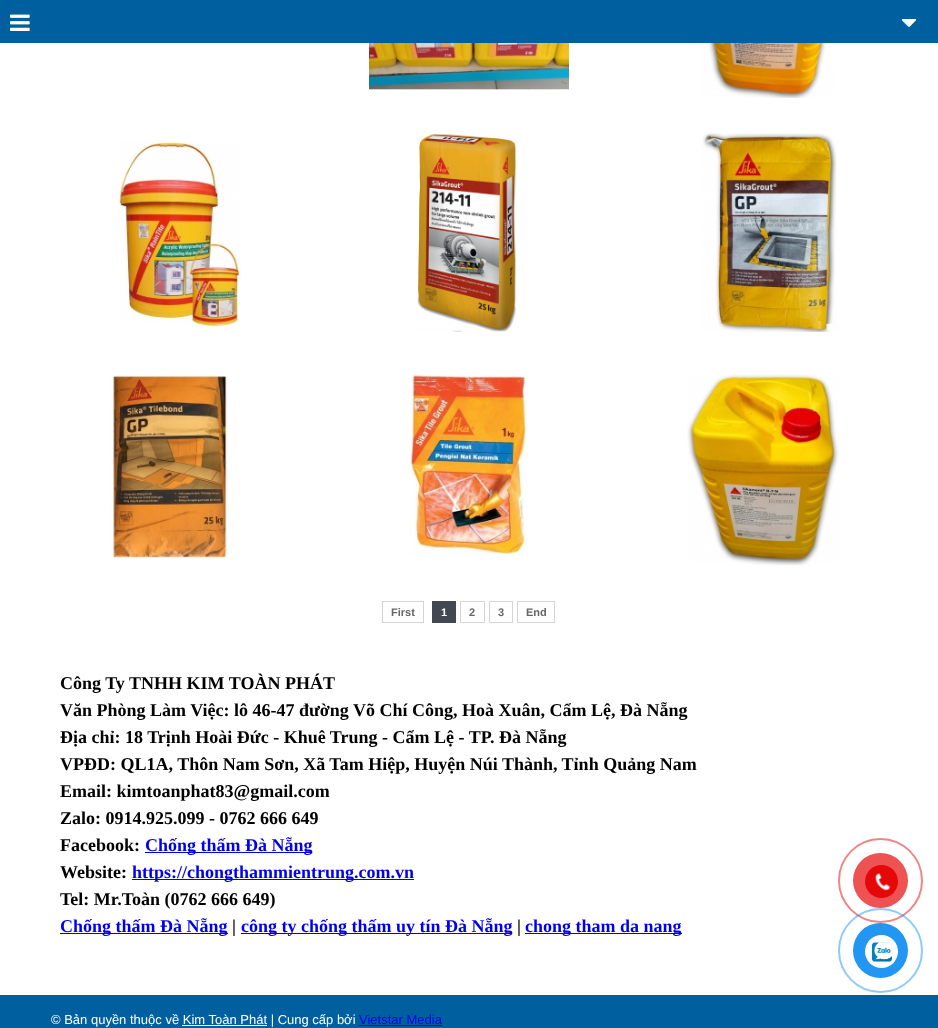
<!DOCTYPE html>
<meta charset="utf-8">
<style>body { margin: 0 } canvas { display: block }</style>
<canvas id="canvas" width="938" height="1028"></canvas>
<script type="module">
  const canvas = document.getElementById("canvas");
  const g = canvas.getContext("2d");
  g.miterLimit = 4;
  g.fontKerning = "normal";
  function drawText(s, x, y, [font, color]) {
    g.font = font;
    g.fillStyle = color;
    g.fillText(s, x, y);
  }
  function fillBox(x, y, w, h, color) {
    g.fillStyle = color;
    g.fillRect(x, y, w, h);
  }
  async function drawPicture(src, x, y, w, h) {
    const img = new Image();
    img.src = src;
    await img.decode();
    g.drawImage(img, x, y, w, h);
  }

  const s1 = ["bold 11px Liberation Sans", "#666666"];
  const s2 = ["bold 11px Liberation Sans", "#FFFFFF"];
  const s3 = ["bold 18px Liberation Serif", "#000000"];
  const s4 = ["bold 18px Liberation Serif", "#0000EE"];
  const s5 = ["13px Liberation Sans", "#FFFFFF"];
  const s6 = ["13px Liberation Sans", "#0000EE"];

  fillBox(0, 0, 938, 1028, "#FFFFFF");
  fillBox(0, 0, 938, 43, "#00609F");
  await drawPicture("pic1.png", 10, 14, 20, 17);
  await drawPicture("pic2.png", 901, 19, 16, 8);
  await drawPicture("pic3.png", 369, 43, 200, 47);
  await drawPicture("pic4.png", 699, 43, 135, 55);
  await drawPicture("pic5.png", 118, 141, 123, 186);
  await drawPicture("pic6.png", 417, 133, 100, 199);
  await drawPicture("pic7.png", 702, 133, 135, 199);
  await drawPicture("pic8.png", 110, 374, 118, 185);
  await drawPicture("pic9.png", 410, 374, 117, 181);
  await drawPicture("pic10.png", 687, 374, 152, 192);
  g.strokeStyle = "#D5D5D5";
  g.strokeRect(382.5, 601.5, 41, 21);
  drawText("First", 391, 616, s1);
  fillBox(432, 601, 24, 22, "#424852");
  drawText("1", 441, 616, s2);
  g.strokeRect(460.5, 601.5, 24, 21);
  drawText("2", 469, 616, s1);
  g.strokeRect(489.5, 601.5, 23, 21);
  drawText("3", 498, 616, s1);
  g.strokeRect(517.5, 601.5, 37, 21);
  drawText("End", 526, 616, s1);
  fillBox(0, 995, 938, 33, "#00609F");
  drawText("Công Ty TNHH KIM TOÀN PHÁT", 60, 689, s3);
  drawText("Văn Phòng Làm Việc: lô 46-47 đường Võ Chí Công, Hoà Xuân, Cẩm Lệ, Đà Nẵng", 60, 716, s3);
  drawText("Địa chỉ: 18 Trịnh Hoài Đức - Khuê Trung - Cẩm Lệ - TP. Đà Nẵng", 60, 743, s3);
  drawText("VPĐD: QL1A, Thôn Nam Sơn, Xã Tam Hiệp, Huyện Núi Thành, Tỉnh Quảng Nam", 60, 770, s3);
  drawText("Email: kimtoanphat83@gmail.com", 60, 797, s3);
  drawText("Zalo: 0914.925.099 - 0762 666 649", 60, 824, s3);
  drawText("Facebook:", 60, 851, s3);
  fillBox(145, 852, 167, 1, "#0000EE");
  drawText("Chống thấm Đà Nẵng", 145, 851, s4);
  drawText("Website:", 60, 878, s3);
  fillBox(132, 879, 282, 1, "#0000EE");
  drawText("https://chongthammientrung.com.vn", 132, 878, s4);
  drawText("Tel: Mr.Toàn (0762 666 649)", 60, 905, s3);
  fillBox(60, 933, 168, 1, "#0000EE");
  drawText("Chống thấm Đà Nẵng", 60, 932, s4);
  drawText("|", 232, 932, s3);
  fillBox(241, 933, 271, 1, "#0000EE");
  drawText("công ty chống thấm uy tín Đà Nẵng", 241, 932, s4);
  drawText("|", 517, 932, s3);
  fillBox(525, 933, 157, 1, "#0000EE");
  drawText("chong tham da nang", 525, 932, s4);
  drawText("© Bản quyền thuộc về Kim Toàn Phát | Cung cấp bởi", 51, 1024, s5);
  drawText("Vietstar Media", 359, 1024, s6);
  fillBox(359, 1025, 83, 1, "#0000EE");
  fillBox(182, 1025, 85, 1, "#FFFFFF");
  g.beginPath();
  g.arc(880.5, 880.5, 41.5, 0, Math.PI * 2);
  g.strokeStyle = "#F38484";
  g.lineWidth = 2;
  g.stroke();
  g.fillStyle = "#EE5252";
  g.beginPath();
  g.arc(880.5, 880.5, 27.5, 0, Math.PI * 2);
  g.fill();
  g.fillStyle = "#E60808";
  g.beginPath();
  g.arc(881.5, 881.5, 16.5, 0, Math.PI * 2);
  g.fill();
  await drawPicture("pic11.png", 875, 873, 16, 18);
  g.beginPath();
  g.arc(880.5, 950.5, 41.5, 0, Math.PI * 2);
  g.strokeStyle = "rgba(33, 150, 243, 0.5)";
  g.stroke();
  g.fillStyle = "#2196F3";
  g.beginPath();
  g.arc(880.5, 950.5, 27.5, 0, Math.PI * 2);
  g.fill();
  g.fillStyle = "#FFFFFF";
  g.beginPath();
  g.arc(881.5, 951.5, 16.5, 0, Math.PI * 2);
  g.fill();
  await drawPicture("pic12.png", 871, 942, 21, 20);
</script>
